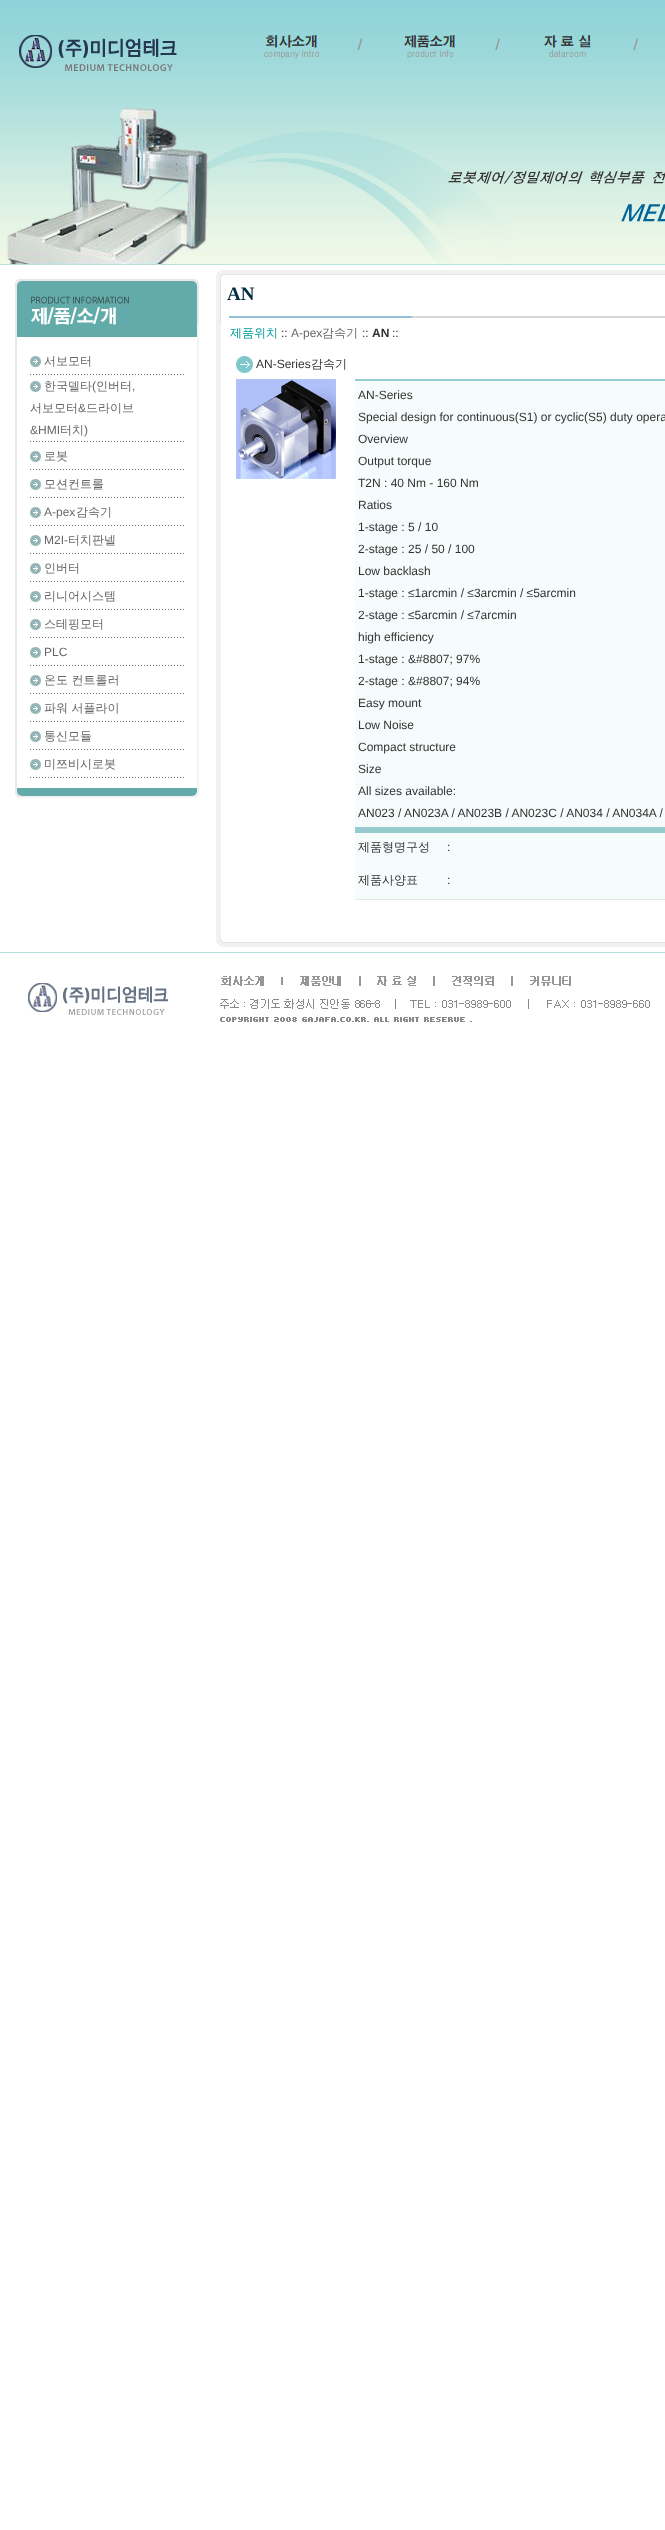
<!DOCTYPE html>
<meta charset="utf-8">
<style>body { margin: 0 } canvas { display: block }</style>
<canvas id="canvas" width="665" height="2530"></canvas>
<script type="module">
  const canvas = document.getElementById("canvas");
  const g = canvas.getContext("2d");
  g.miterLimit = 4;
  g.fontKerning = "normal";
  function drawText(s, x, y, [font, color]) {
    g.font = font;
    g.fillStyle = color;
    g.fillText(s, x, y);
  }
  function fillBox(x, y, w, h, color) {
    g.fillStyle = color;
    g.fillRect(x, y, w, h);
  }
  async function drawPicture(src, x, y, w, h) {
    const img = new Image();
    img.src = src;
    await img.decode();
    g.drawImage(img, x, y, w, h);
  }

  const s1 = ["500 12px WenQuanYi Zen Hei", "#666666"];
  const s2 = ["12px Liberation Sans", "#666666"];
  const s3 = ["bold 19px Liberation Serif", "#002C42"];
  const s4 = ["500 12px WenQuanYi Zen Hei", "#009999"];
  const s5 = ["12px Liberation Sans", "#333333"];
  const s6 = ["bold 12px Liberation Sans", "#333333"];
  const s7 = ["500 12px WenQuanYi Zen Hei", "#333333"];

  fillBox(0, 0, 665, 2530, "#FFFFFF");
  await drawPicture("pic1.png", 0, 0, 665, 106);
  await drawPicture("pic2.png", 19, 32, 619, 40);
  await drawPicture("pic3.png", 0, 106, 665, 159);
  await drawPicture("pic4.png", 15, 279, 184, 58);
  fillBox(15, 337, 2, 451, "#E8E8E8");
  await drawPicture("pic5.png", 30, 356, 11, 11);
  drawText("서보모터", 44, 365, s1);
  await drawPicture("pic6.png", 30, 374, 154, 1);
  await drawPicture("pic5.png", 30, 381, 11, 11);
  drawText("한국델타", 44, 390, s1);
  drawText("(", 92, 390, s2);
  drawText("인버터", 96, 390, s1);
  drawText(",", 132, 390, s2);
  drawText("서보모터", 30, 412, s1);
  drawText("&", 78, 412, s2);
  drawText("드라이브", 86, 412, s1);
  drawText("&HMI", 30, 434, s2);
  drawText("터치", 60, 434, s1);
  drawText(")", 84, 434, s2);
  await drawPicture("pic6.png", 30, 441, 154, 1);
  await drawPicture("pic5.png", 30, 451, 11, 11);
  drawText("로봇", 44, 460, s1);
  await drawPicture("pic6.png", 30, 469, 154, 1);
  await drawPicture("pic5.png", 30, 479, 11, 11);
  drawText("모션컨트롤", 44, 488, s1);
  await drawPicture("pic6.png", 30, 497, 154, 1);
  await drawPicture("pic5.png", 30, 507, 11, 11);
  drawText("A-pex", 44, 516, s2);
  drawText("감속기", 76, 516, s1);
  await drawPicture("pic6.png", 30, 525, 154, 1);
  await drawPicture("pic5.png", 30, 535, 11, 11);
  drawText("M2I-", 44, 544, s2);
  drawText("터치판넬", 68, 544, s1);
  await drawPicture("pic6.png", 30, 553, 154, 1);
  await drawPicture("pic5.png", 30, 563, 11, 11);
  drawText("인버터", 44, 572, s1);
  await drawPicture("pic6.png", 30, 581, 154, 1);
  await drawPicture("pic5.png", 30, 591, 11, 11);
  drawText("리니어시스템", 44, 600, s1);
  await drawPicture("pic6.png", 30, 609, 154, 1);
  await drawPicture("pic5.png", 30, 619, 11, 11);
  drawText("스테핑모터", 44, 628, s1);
  await drawPicture("pic6.png", 30, 637, 154, 1);
  await drawPicture("pic5.png", 30, 647, 11, 11);
  drawText("PLC", 44, 656, s2);
  await drawPicture("pic6.png", 30, 665, 154, 1);
  await drawPicture("pic5.png", 30, 675, 11, 11);
  drawText("온도 컨트롤러", 44, 684, s1);
  await drawPicture("pic6.png", 30, 693, 154, 1);
  await drawPicture("pic5.png", 30, 703, 11, 11);
  drawText("파워 서플라이", 44, 712, s1);
  await drawPicture("pic6.png", 30, 721, 154, 1);
  await drawPicture("pic5.png", 30, 731, 11, 11);
  drawText("통신모듈", 44, 740, s1);
  await drawPicture("pic6.png", 30, 749, 154, 1);
  await drawPicture("pic5.png", 30, 759, 11, 11);
  drawText("미쯔비시로봇", 44, 768, s1);
  await drawPicture("pic6.png", 30, 777, 154, 1);
  fillBox(197, 337, 2, 451, "#F3F3F3");
  await drawPicture("pic7.png", 15, 788, 184, 10);
  await drawPicture("pic8.png", 216, 270, 449, 52);
  drawText("AN", 227, 300, s3);
  fillBox(216, 322, 5, 615, "#F1F1F1");
  drawText("제품위치", 230, 337, s4);
  drawText("::", 281, 337, s5);
  drawText("A-pex", 291, 337, s2);
  drawText("감속기", 322, 337, s1);
  drawText("::", 362, 337, s5);
  drawText("AN", 372, 337, s6);
  drawText("::", 392, 337, s5);
  await drawPicture("pic9.png", 236, 356, 17, 17);
  drawText("AN-Series", 256, 368, s5);
  drawText("감속기", 311, 368, s7);
  await drawPicture("pic10.png", 236, 379, 100, 100);
  fillBox(355, 379, 310, 2, "#98CBD0");
  fillBox(355, 381, 310, 446, "#F6FCFC");
  drawText("AN-Series", 358, 399, s5);
  drawText("Special design for continuous(S1) or cyclic(S5) duty opera", 358, 421, s5);
  drawText("Overview", 358, 443, s5);
  drawText("Output torque", 358, 465, s5);
  drawText("T2N : 40 Nm - 160 Nm", 358, 487, s5);
  drawText("Ratios", 358, 509, s5);
  drawText("1-stage : 5 / 10", 358, 531, s5);
  drawText("2-stage : 25 / 50 / 100", 358, 553, s5);
  drawText("Low backlash", 358, 575, s5);
  drawText("1-stage : ≤1arcmin / ≤3arcmin / ≤5arcmin", 358, 597, s5);
  drawText("2-stage : ≤5arcmin / ≤7arcmin", 358, 619, s5);
  drawText("high efficiency", 358, 641, s5);
  drawText("1-stage : &#8807; 97%", 358, 663, s5);
  drawText("2-stage : &#8807; 94%", 358, 685, s5);
  drawText("Easy mount", 358, 707, s5);
  drawText("Low Noise", 358, 729, s5);
  drawText("Compact structure", 358, 751, s5);
  drawText("Size", 358, 773, s5);
  drawText("All sizes available:", 358, 795, s5);
  drawText("AN023 / AN023A / AN023B / AN023C / AN034 / AN034A /", 358, 817, s5);
  fillBox(355, 827, 310, 6, "#98CBD0");
  fillBox(355, 833, 310, 33, "#F6FCFC");
  drawText("제품형명구성", 358, 851, s7);
  drawText(":", 447, 851, s5);
  fillBox(355, 866, 310, 33, "#F6FCFC");
  drawText("제품사양표", 358, 884, s7);
  drawText(":", 447, 884, s5);
  fillBox(355, 899, 310, 1, "#DCEBE8");
  await drawPicture("pic11.png", 216, 937, 449, 10);
  await drawPicture("pic12.png", 0, 952, 665, 70);
</script>
